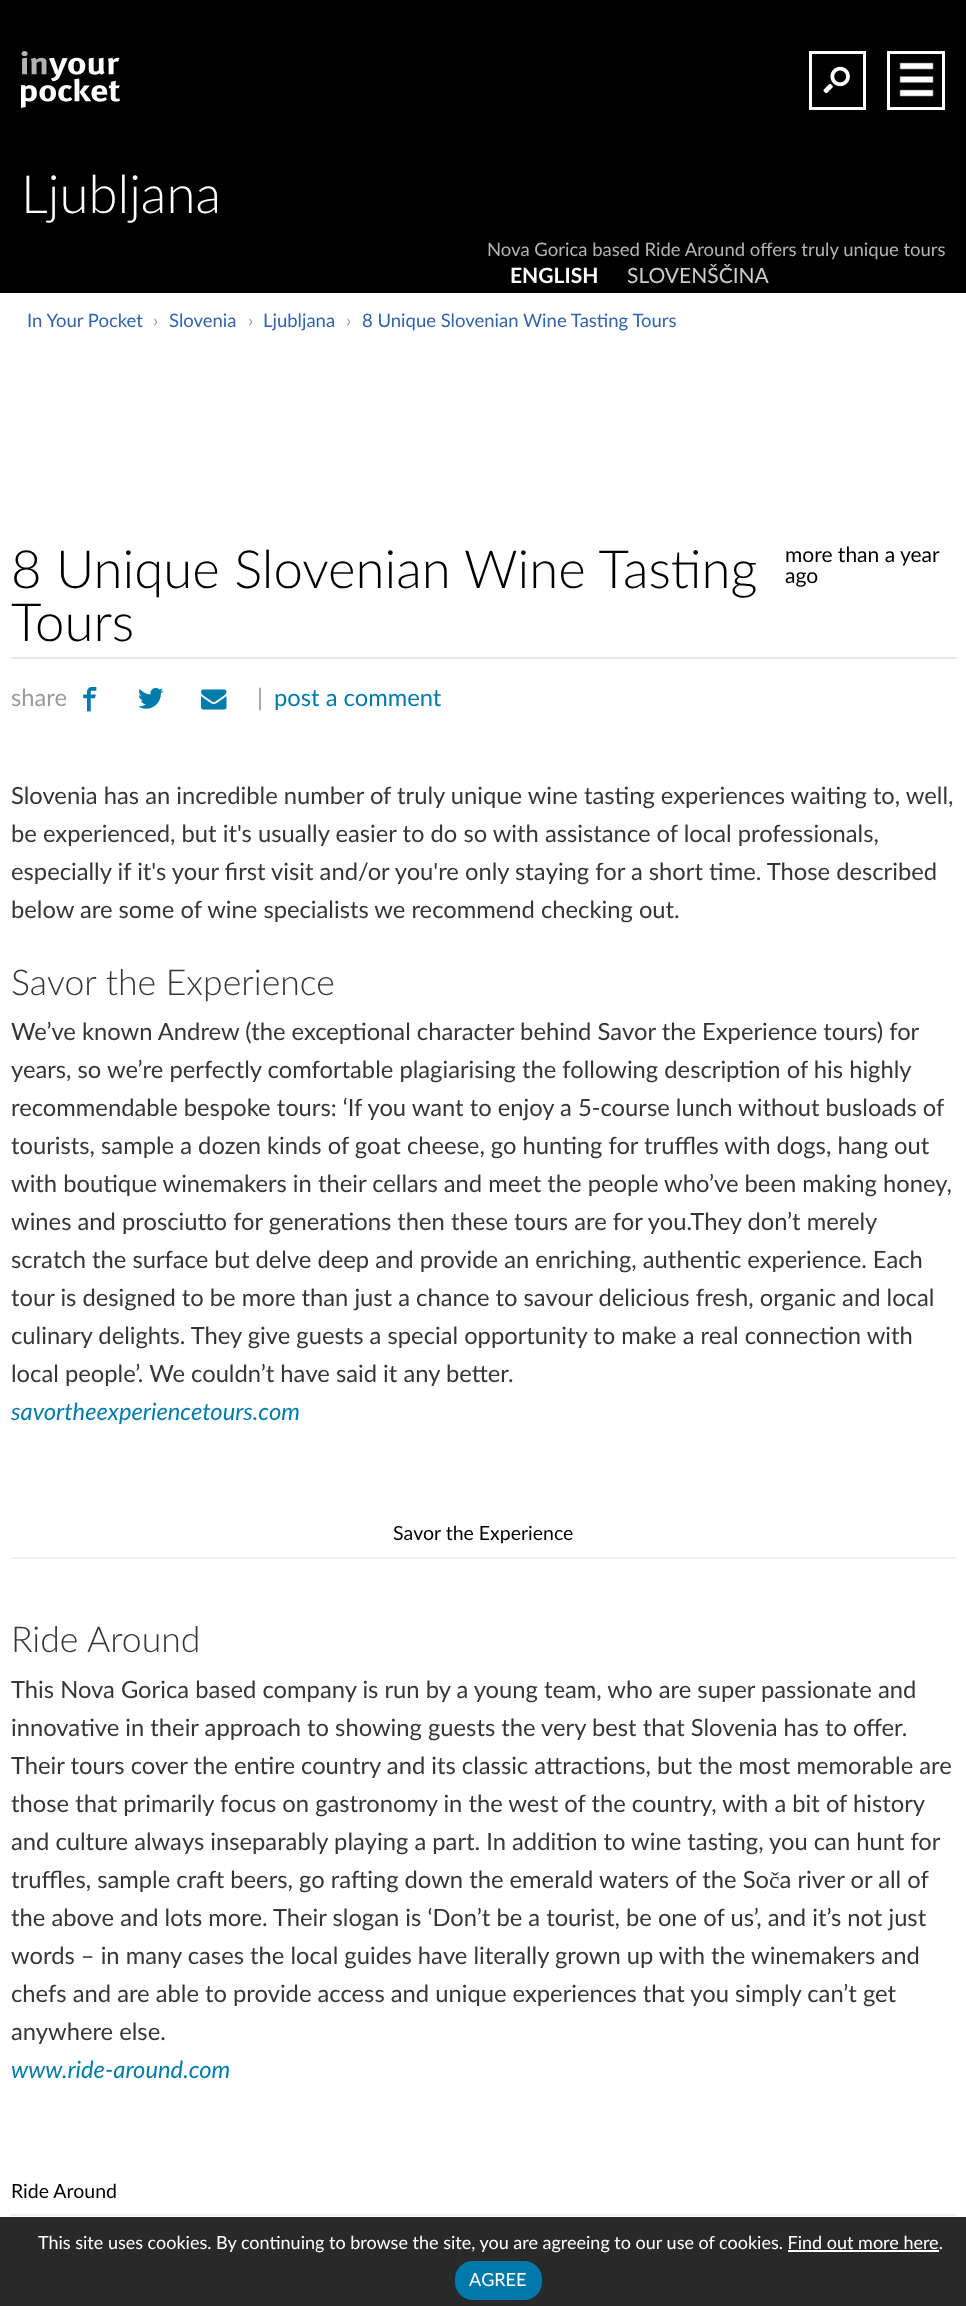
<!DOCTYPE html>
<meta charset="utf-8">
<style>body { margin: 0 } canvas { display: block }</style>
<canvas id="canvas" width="966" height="2306"></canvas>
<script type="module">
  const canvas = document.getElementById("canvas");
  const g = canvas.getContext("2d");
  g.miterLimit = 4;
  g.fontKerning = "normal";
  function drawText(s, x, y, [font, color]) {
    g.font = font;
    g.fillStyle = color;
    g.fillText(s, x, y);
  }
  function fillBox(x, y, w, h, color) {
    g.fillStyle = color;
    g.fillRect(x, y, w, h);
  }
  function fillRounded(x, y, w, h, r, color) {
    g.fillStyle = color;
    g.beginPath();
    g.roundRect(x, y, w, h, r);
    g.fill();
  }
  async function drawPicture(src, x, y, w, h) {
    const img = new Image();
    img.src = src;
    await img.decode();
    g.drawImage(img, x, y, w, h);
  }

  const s1 = ["300 52.75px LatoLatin", "#FFFFFF"];
  const s2 = ["18.5px LatoLatin", "#B3B3B3"];
  const s3 = ["bold 21px LatoLatin", "#FFFFFF"];
  const s4 = ["21px LatoLatin", "#CCCCCC"];
  const s5 = ["18.5px LatoLatin", "#3164AF"];
  const s6 = ["18.5px LatoLatin", "#83A2CF"];
  const s7 = ["300 52.75px LatoLatin", "#000000"];
  const s8 = ["21px LatoLatin", "#000000"];
  const s9 = ["23.75px LatoLatin", "#9B9B9B"];
  const s10 = ["23.75px LatoLatin", "#007CAC"];
  const s11 = ["23.75px LatoLatin", "#363636"];
  const s12 = ["300 35.6px LatoLatin", "#363636"];
  const s13 = ["italic 23.75px LatoLatin", "#007CAC"];
  const s14 = ["19.5px LatoLatin", "#000000"];
  const s15 = ["18px LatoLatin", "#FFFFFF"];

  fillBox(0, 0, 966, 2306, "#FFFFFF");
  fillBox(0, 0, 966, 293, "#000000");
  await drawPicture("pic1.png", 21, 51, 99, 57);
  g.strokeStyle = "#FFFFFF";
  g.lineWidth = 3;
  g.strokeRect(810.5, 52.5, 54, 56);
  await drawPicture("pic2.png", 823, 66, 27, 28);
  await drawPicture("pic3.png", 899, 62, 35, 35);
  g.strokeRect(888.5, 52.5, 55, 56);
  drawText("Ljubljana", 21, 213, s1);
  drawText("Nova Gorica based Ride Around offers truly unique tours", 487, 256, s2);
  drawText("ENGLISH", 510, 283, s3);
  drawText("SLOVENŠČINA", 627, 283, s4);
  drawText("In Your Pocket", 27, 327, s5);
  drawText("›", 153, 327, s6);
  drawText("Slovenia", 169, 327, s5);
  drawText("›", 248, 327, s6);
  drawText("Ljubljana", 263, 327, s5);
  drawText("›", 346, 327, s6);
  drawText("8 Unique Slovenian Wine Tasting Tours", 362, 327, s5);
  fillBox(11, 657, 945, 2, "#E7E7E7");
  drawText("8 Unique Slovenian Wine Tasting", 11, 588, s7);
  drawText("Tours", 11, 641, s7);
  drawText("more than a year", 785, 562, s8);
  drawText("ago", 785, 583, s8);
  drawText("share", 11, 706, s9);
  await drawPicture("pic4.png", 83, 687, 14, 25);
  await drawPicture("pic5.png", 138, 688, 26, 21);
  await drawPicture("pic6.png", 201, 689, 26, 21);
  drawText("|", 257, 706, s9);
  drawText("post a comment", 274, 706, s10);
  drawText("Slovenia has an incredible number of truly unique wine tasting experiences waiting to, well,", 11, 804, s11);
  drawText("be experienced, but it's usually easier to do so with assistance of local professionals,", 11, 842, s11);
  drawText("especially if it's your first visit and/or you're only staying for a short time. Those described", 11, 880, s11);
  drawText("below are some of wine specialists we recommend checking out.", 11, 918, s11);
  drawText("Savor the Experience", 11, 995, s12);
  drawText("We’ve known Andrew (the exceptional character behind Savor the Experience tours) for", 11, 1040, s11);
  drawText("years, so we’re perfectly comfortable plagiarising the following description of his highly", 11, 1078, s11);
  drawText("recommendable bespoke tours: ‘If you want to enjoy a 5-course lunch without busloads of", 11, 1116, s11);
  drawText("tourists, sample a dozen kinds of goat cheese, go hunting for truffles with dogs, hang out", 11, 1154, s11);
  drawText("with boutique winemakers in their cellars and meet the people who’ve been making honey,", 11, 1192, s11);
  drawText("wines and prosciutto for generations then these tours are for you.They don’t merely", 11, 1230, s11);
  drawText("scratch the surface but delve deep and provide an enriching, authentic experience. Each", 11, 1268, s11);
  drawText("tour is designed to be more than just a chance to savour delicious fresh, organic and local", 11, 1306, s11);
  drawText("culinary delights. They give guests a special opportunity to make a real connection with", 11, 1344, s11);
  drawText("local people’. We couldn’t have said it any better.", 11, 1382, s11);
  drawText("savortheexperiencetours.com", 11, 1420, s13);
  fillBox(11, 1557, 945, 2, "#EFEFEF");
  drawText("Savor the Experience", 393, 1540, s14);
  drawText("Ride Around", 11, 1652, s12);
  drawText("This Nova Gorica based company is run by a young team, who are super passionate and", 11, 1698, s11);
  drawText("innovative in their approach to showing guests the very best that Slovenia has to offer.", 11, 1736, s11);
  drawText("Their tours cover the entire country and its classic attractions, but the most memorable are", 11, 1774, s11);
  drawText("those that primarily focus on gastronomy in the west of the country, with a bit of history", 11, 1812, s11);
  drawText("and culture always inseparably playing a part. In addition to wine tasting, you can hunt for", 11, 1850, s11);
  drawText("truffles, sample craft beers, go rafting down the emerald waters of the Soča river or all of", 11, 1888, s11);
  drawText("the above and lots more. Their slogan is ‘Don’t be a tourist, be one of us’, and it’s not just", 11, 1926, s11);
  drawText("words – in many cases the local guides have literally grown up with the winemakers and", 11, 1964, s11);
  drawText("chefs and are able to provide access and unique experiences that you simply can’t get", 11, 2002, s11);
  drawText("anywhere else.", 11, 2040, s11);
  drawText("www.ride-around.com", 11, 2078, s13);
  fillBox(11, 2214, 945, 2, "#EFEFEF");
  drawText("Ride Around", 11, 2198, s14);
  fillBox(0, 2217, 966, 89, "#292929");
  drawText("This site uses cookies. By continuing to browse the site, you are agreeing to our use of cookies. Find out more here.", 38, 2249, s15);
  fillBox(788, 2250, 151, 2, "#FFFFFF");
  fillRounded(455, 2261, 87, 39, 18, "#0079AA");
  drawText("AGREE", 469, 2286, s15);
</script>
